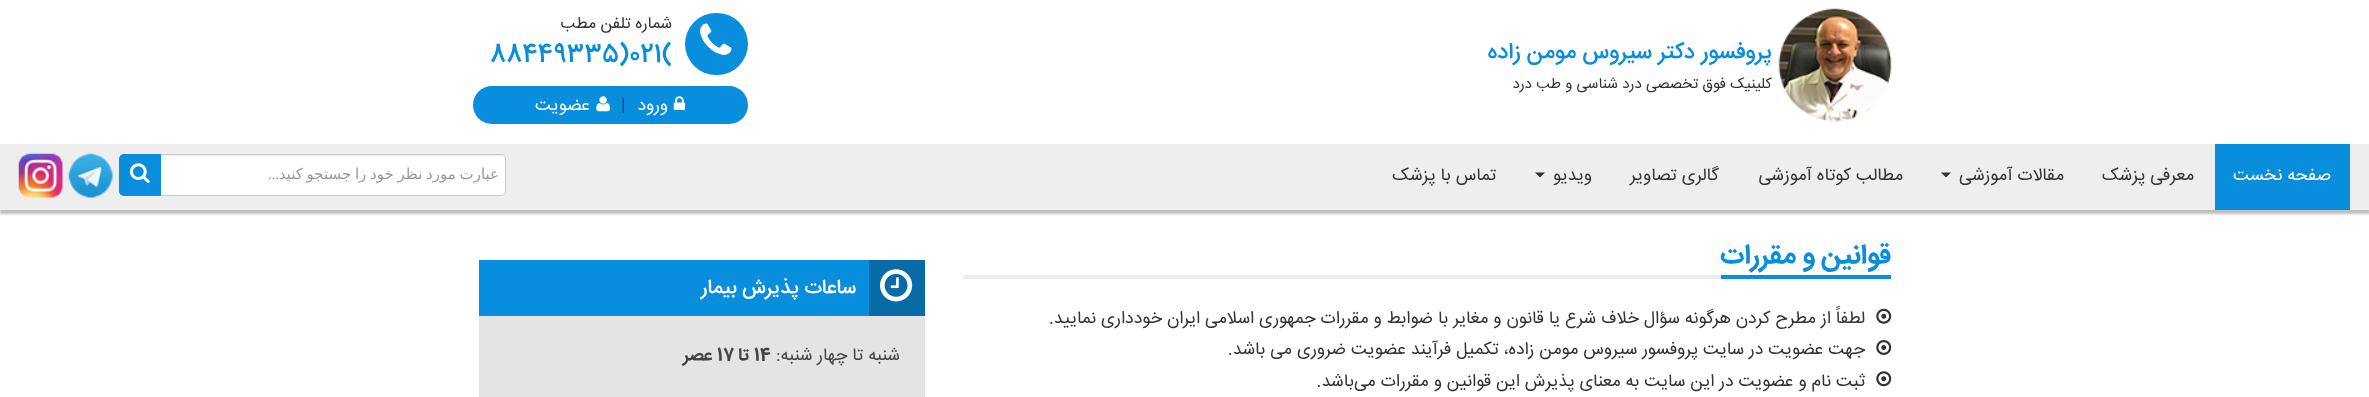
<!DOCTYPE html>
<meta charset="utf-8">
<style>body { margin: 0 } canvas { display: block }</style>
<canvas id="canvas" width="2369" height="397"></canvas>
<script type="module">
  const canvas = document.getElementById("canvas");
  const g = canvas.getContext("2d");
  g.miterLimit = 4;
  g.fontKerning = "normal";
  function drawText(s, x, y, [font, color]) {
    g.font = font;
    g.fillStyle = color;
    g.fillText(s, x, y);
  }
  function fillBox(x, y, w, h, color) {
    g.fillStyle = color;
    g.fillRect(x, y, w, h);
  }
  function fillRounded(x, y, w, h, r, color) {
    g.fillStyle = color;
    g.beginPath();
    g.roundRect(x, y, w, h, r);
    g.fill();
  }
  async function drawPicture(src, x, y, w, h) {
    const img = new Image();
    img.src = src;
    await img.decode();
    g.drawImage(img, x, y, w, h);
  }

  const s1 = ["500 22.5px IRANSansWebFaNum", "#088EDD"];
  const s2 = ["15px IRANSansWebFaNum", "#333333"];
  const s3 = ["16.25px IRANSansWebFaNum", "#333333"];
  const s4 = ["500 25px IRANSansWebFaNum", "#088EDD"];
  const s5 = ["17.5px IRANSansWebFaNum", "#FFFFFF"];
  const s6 = ["17.5px IRANSansWebFaNum", "#044F7B"];
  const s7 = ["17.5px IRANSansWebFaNum", "#333333"];
  const s8 = ["15px DejaVu Sans", "#999999"];
  const s9 = ["15px Liberation Serif", "#999999"];
  const s10 = ["bold 27.5px IRANSansWebFaNum", "#088EDD"];
  const s11 = ["500 20px IRANSansWebFaNum", "#FFFFFF"];
  const s12 = ["17.5px IRANSansWebFaNum", "#444444"];
  const s13 = ["bold 17.5px IRANSansWebFaNum", "#444444"];

  fillBox(0, 0, 2369, 397, "#FFFFFF");
  await drawPicture("pic1.png", 1778, 8, 114, 114);
  g.direction = "rtl";
  drawText("پروفسور دکتر سیروس مومن زاده", 1772, 58, s1);
  drawText("کلینیک فوق تخصصی درد شناسی و طب درد", 1772, 88, s2);
  fillRounded(685, 13, 63, 62, 31, "#088EDD");
  await drawPicture("pic2.png", 700, 23, 32, 32);
  drawText("شماره تلفن مطب", 672, 28, s3);
  g.direction = "ltr";
  drawText("021(", 629, 61, s4);
  drawText("88449335)", 490, 61, s4);
  fillRounded(473, 86, 275, 38, 19, "#088EDD");
  await drawPicture("pic3.png", 673, 96, 12, 14);
  g.direction = "rtl";
  drawText("ورود", 668, 110, s5);
  g.direction = "ltr";
  drawText("|", 621, 110, s6);
  await drawPicture("pic4.png", 596, 96, 14, 16);
  g.direction = "rtl";
  drawText("عضویت", 590, 110, s5);
  g.fillStyle = "rgba(0, 0, 0, 0.25)";
  g.filter = "blur(1px)";
  g.beginPath();
  g.rect(0, 148, 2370, 66);
  g.fill();
  g.filter = "none";
  fillBox(0, 144, 2369, 66, "#EEEEEE");
  fillBox(2215, 144, 135, 66, "#088EDD");
  drawText("صفحه نخست", 2331, 180, s5);
  drawText("معرفی پزشک", 2194, 180, s7);
  drawText("مقالات آموزشی", 2064, 180, s7);
  g.beginPath();
  g.moveTo(1941, 172.5);
  g.lineTo(1951, 172.5);
  g.lineTo(1946, 177.5);
  g.closePath();
  g.fill();
  drawText("مطالب کوتاه آموزشی", 1903, 180, s7);
  drawText("گالری تصاویر", 1719, 180, s7);
  drawText("ویدیو", 1592, 180, s7);
  g.beginPath();
  g.moveTo(1535, 172.5);
  g.lineTo(1545, 172.5);
  g.lineTo(1540, 177.5);
  g.closePath();
  g.fill();
  drawText("تماس با پزشک", 1496, 180, s7);
  fillRounded(131, 154, 375, 42, 4, "#FFFFFF");
  g.fillStyle = "#ECECEC";
  g.beginPath();
  g.moveTo(135, 156);
  g.lineTo(502, 156);
  g.bezierCurveTo(504, 156, 505, 157, 505, 159);
  g.lineTo(505, 158);
  g.bezierCurveTo(505, 156, 504, 155, 502, 155);
  g.lineTo(136, 155);
  g.bezierCurveTo(134, 155, 133, 156, 133, 157);
  g.closePath();
  g.fill();
  g.beginPath();
  g.roundRect(131.5, 154.5, 374, 41, 3.5);
  g.strokeStyle = "#CCCCCC";
  g.stroke();
  g.save();
  g.beginPath();
  g.rect(139, 166, 360, 19);
  g.clip();
  g.wordSpacing = "-1px";
  drawText("عبارت مورد نظر خود را جستجو کنید", 499, 179, s8);
  g.restore();
  drawText("...", 279, 179, s9);
  g.fillStyle = "#088EDD";
  g.beginPath();
  g.roundRect(119, 154, 42, 42, [5, 0, 0, 5]);
  g.fill();
  await drawPicture("pic5.png", 130, 163, 20, 20);
  await drawPicture("pic6.png", 68, 153, 45, 45);
  await drawPicture("pic7.png", 18, 153, 45, 45);
  fillBox(963, 275, 758, 4, "#ECECEC");
  fillBox(1721, 275, 170, 4, "#088EDD");
  drawText("قوانین و مقررات", 1891, 263, s10);
  await drawPicture("pic8.png", 1876, 308, 16, 16);
  drawText("لطفاً از مطرح کردن هرگونه سؤال خلاف شرع یا قانون و مغایر با ضوابط و مقررات جمهوری اسلامی ایران خودداری نمایید.", 1865, 323, s7);
  await drawPicture("pic9.png", 1876, 340, 16, 15);
  drawText("جهت عضویت در سایت پروفسور سیروس مومن زاده، تکمیل فرآیند عضویت ضروری می باشد.", 1865, 354, s7);
  await drawPicture("pic10.png", 1876, 371, 16, 16);
  drawText("ثبت نام و عضویت در این سایت به معنای پذیرش این قوانین و مقررات می‌باشد.", 1865, 386, s7);
  fillBox(479, 316, 446, 81, "#E4E4E4");
  fillBox(479, 260, 390, 56, "#088EDD");
  fillBox(869, 260, 56, 56, "#066BA6");
  await drawPicture("pic11.png", 880, 269, 33, 33);
  drawText("ساعات پذیرش بیمار", 856, 293, s11);
  drawText("شنبه تا چهار شنبه:", 900, 360, s12);
  g.direction = "ltr";
  drawText("14", 754, 360, s13);
  g.direction = "rtl";
  drawText("تا", 749, 360, s13);
  g.direction = "ltr";
  drawText("17", 717, 360, s13);
  g.direction = "rtl";
  drawText("عصر", 712, 360, s13);
</script>
